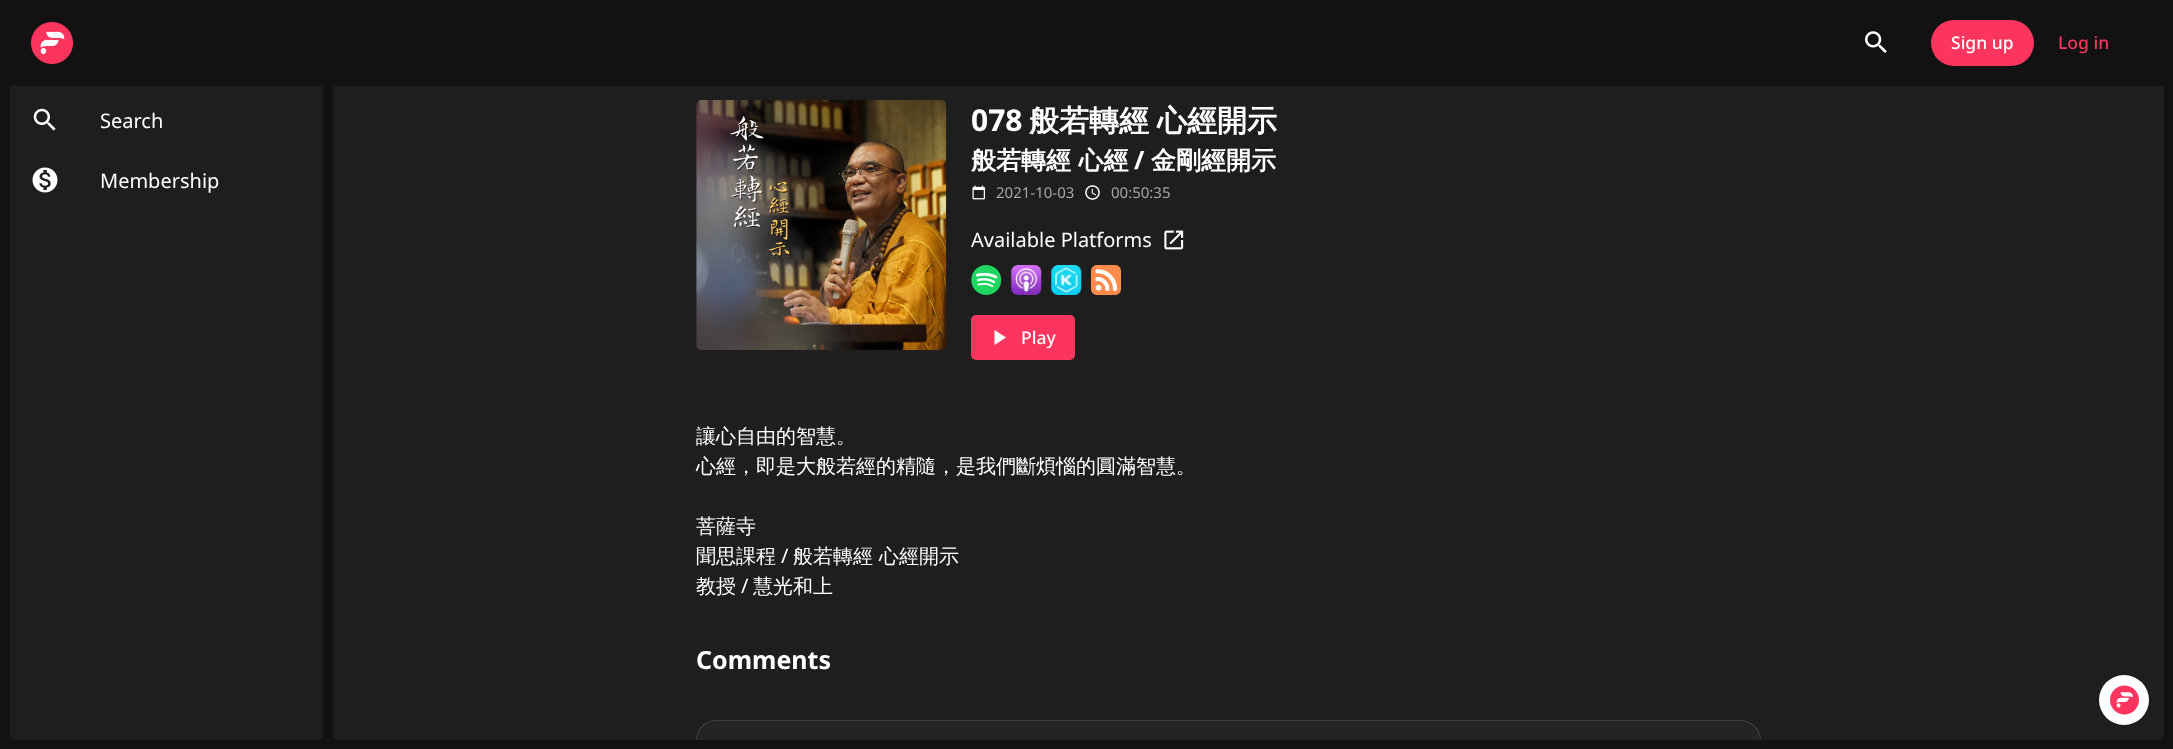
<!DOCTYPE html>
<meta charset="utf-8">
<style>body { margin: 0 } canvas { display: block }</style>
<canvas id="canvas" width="2173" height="749"></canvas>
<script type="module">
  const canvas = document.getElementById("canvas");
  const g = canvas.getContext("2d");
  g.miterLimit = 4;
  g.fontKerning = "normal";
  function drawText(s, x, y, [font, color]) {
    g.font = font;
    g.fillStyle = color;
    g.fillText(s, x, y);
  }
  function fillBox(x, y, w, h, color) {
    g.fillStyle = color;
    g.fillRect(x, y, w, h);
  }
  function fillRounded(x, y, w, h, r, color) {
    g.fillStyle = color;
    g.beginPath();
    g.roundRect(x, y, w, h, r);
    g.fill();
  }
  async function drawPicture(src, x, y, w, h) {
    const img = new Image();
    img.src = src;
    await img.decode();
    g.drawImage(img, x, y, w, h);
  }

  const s1 = ["500 17.5px Noto Sans", "#FFFFFF"];
  const s2 = ["500 17.5px Noto Sans", "#FB355E"];
  const s3 = ["20px Noto Sans", "#FFFFFF"];
  const s4 = ["bold 30px Noto Sans", "#FFFFFF"];
  const s5 = ["bold 30px WenQuanYi Zen Hei", "#FFFFFF"];
  const s6 = ["bold 25px WenQuanYi Zen Hei", "#FFFFFF"];
  const s7 = ["bold 25px Noto Sans", "#FFFFFF"];
  const s8 = ["15px Noto Sans", "#A5A5A5"];
  const s9 = ["500 20px WenQuanYi Zen Hei", "#FFFFFF"];

  fillBox(0, 0, 2173, 749, "#121212");
  fillRounded(10, 80, 313, 660, 5, "#1E1E1E");
  fillRounded(333, 80, 1831, 660, 5, "#1E1E1E");
  fillBox(10, 80, 2154, 6, "#121212");
  await drawPicture("pic1.png", 31, 22, 42, 42);
  await drawPicture("pic2.png", 1865, 31, 22, 22);
  fillRounded(1931, 20, 103, 46, 23, "#FB355E");
  drawText("Sign up", 1951, 49, s1);
  drawText("Log in", 2058, 49, s2);
  await drawPicture("pic3.png", 33, 108, 23, 23);
  drawText("Search", 100, 128, s3);
  await drawPicture("pic4.png", 32, 167, 26, 26);
  drawText("Membership", 100, 188, s3);
  await drawPicture("pic5.png", 696, 100, 251, 250);
  drawText("078", 971, 131, s4);
  g.wordSpacing = "-1px";
  drawText("般若轉經 心經開示", 1029, 131, s5);
  g.wordSpacing = "0px";
  drawText("般若轉經 心經", 971, 169, s6);
  drawText("/", 1134, 169, s7);
  drawText("金剛經開示", 1151, 169, s6);
  await drawPicture("pic6.png", 972, 185, 13, 15);
  drawText("2021-10-03", 996, 198, s8);
  await drawPicture("pic7.png", 1085, 185, 15, 15);
  drawText("00:50:35", 1111, 198, s8);
  drawText("Available Platforms", 971, 247, s3);
  await drawPicture("pic8.png", 1164, 230, 20, 20);
  await drawPicture("pic9.png", 971, 265, 30, 30);
  await drawPicture("pic10.png", 1011, 265, 31, 30);
  await drawPicture("pic11.png", 1051, 265, 31, 30);
  await drawPicture("pic12.png", 1091, 265, 30, 30);
  fillRounded(971, 315, 104, 45, 5, "#FB355E");
  g.fillStyle = "#FFFFFF";
  g.beginPath();
  g.moveTo(994.5, 330);
  g.lineTo(994.5, 345);
  g.lineTo(1006, 337.5);
  g.closePath();
  g.fill();
  drawText("Play", 1021, 344, s1);
  drawText("讓心自由的智慧。", 696, 443, s9);
  drawText("心經，即是大般若經的精隨，是我們斷煩惱的圓滿智慧。", 696, 473, s9);
  drawText("菩薩寺", 696, 533, s9);
  drawText("聞思課程", 696, 563, s9);
  drawText("/", 781, 563, s3);
  drawText("般若轉經 心經開示", 793, 563, s9);
  drawText("教授", 696, 593, s9);
  drawText("/", 741, 593, s3);
  drawText("慧光和上", 753, 593, s9);
  drawText("Comments", 696, 669, s7);
  g.fillStyle = "#121212";
  g.beginPath();
  g.roundRect(696, 720, 1065, 20, [20, 20, 0, 0]);
  g.fill();
  g.fillStyle = "rgba(255, 255, 255, 0.08)";
  g.beginPath();
  g.roundRect(696, 720, 1065, 20, [20, 20, 0, 0]);
  g.fill();
  g.fillStyle = "rgba(255, 255, 255, 0.12)";
  g.beginPath();
  g.moveTo(716, 720);
  g.bezierCurveTo(705, 720, 696, 729, 696, 740);
  g.lineTo(697, 740);
  g.bezierCurveTo(697, 730, 706, 721, 716, 721);
  g.lineTo(1741, 721);
  g.bezierCurveTo(1751, 721, 1760, 730, 1760, 740);
  g.lineTo(1761, 740);
  g.bezierCurveTo(1761, 729, 1752, 720, 1741, 720);
  g.closePath();
  g.fill();
  g.fillStyle = "#FFFFFF";
  g.beginPath();
  g.arc(2124, 700, 25, 0, Math.PI * 2);
  g.fill();
  await drawPicture("pic13.png", 2110, 685, 29, 30);
</script>
